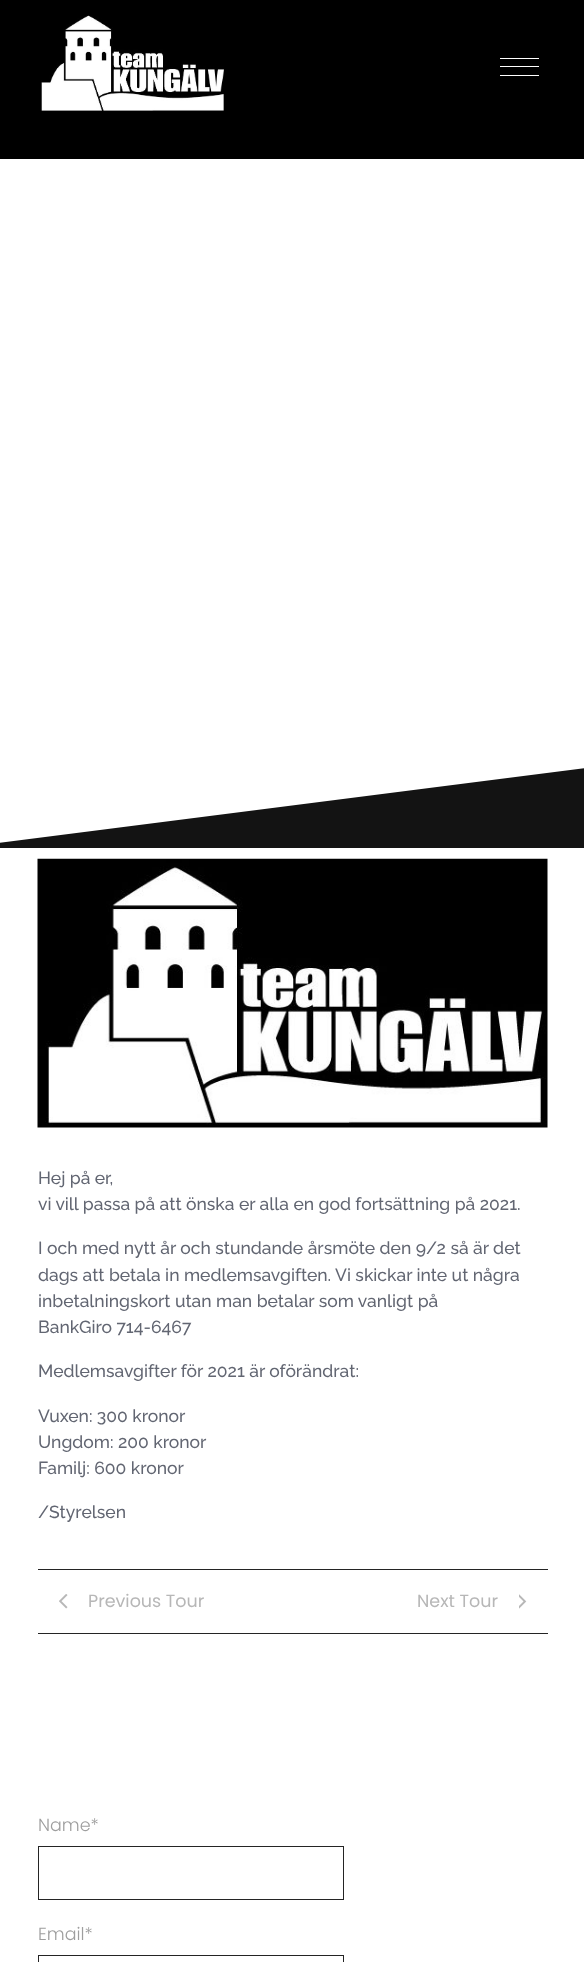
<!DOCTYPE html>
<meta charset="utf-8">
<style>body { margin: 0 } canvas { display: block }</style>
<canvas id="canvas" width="584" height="1962"></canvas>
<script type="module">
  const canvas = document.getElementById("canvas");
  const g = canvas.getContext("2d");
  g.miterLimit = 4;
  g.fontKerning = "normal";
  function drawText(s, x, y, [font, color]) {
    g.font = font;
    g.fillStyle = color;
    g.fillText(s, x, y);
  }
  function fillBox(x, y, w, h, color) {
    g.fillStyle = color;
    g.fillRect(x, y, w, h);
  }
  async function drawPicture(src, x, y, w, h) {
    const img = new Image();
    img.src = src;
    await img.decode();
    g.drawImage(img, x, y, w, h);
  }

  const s1 = ["500 17.5px Raleway", "#626672"];
  const s2 = ["17.5px Poppins", "#B7B7B7"];
  const s3 = ["300 17.5px Poppins", "#9E9E9E"];

  fillBox(0, 0, 584, 1962, "#FFFFFF");
  fillBox(0, 0, 584, 159, "#000000");
  await drawPicture("pic1.png", 41, 15, 183, 96);
  fillBox(500, 58, 39, 1, "#FFFFFF");
  fillBox(500, 66, 39, 1, "#FFFFFF");
  fillBox(500, 75, 39, 1, "#FFFFFF");
  g.fillStyle = "#131313";
  g.beginPath();
  g.moveTo(-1, 843);
  g.lineTo(-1, 848);
  g.lineTo(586, 848);
  g.lineTo(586, 768);
  g.closePath();
  g.fill();
  await drawPicture("pic2.png", 37, 858, 511, 270);
  drawText("Hej på er,", 38, 1184, s1);
  drawText("vi vill passa på att önska er alla en god fortsättning på 2021.", 38, 1210, s1);
  drawText("I och med nytt år och stundande årsmöte den 9/2 så är det", 38, 1254, s1);
  drawText("dags att betala in medlemsavgiften. Vi skickar inte ut några", 38, 1281, s1);
  drawText("inbetalningskort utan man betalar som vanligt på", 38, 1307, s1);
  drawText("BankGiro 714-6467", 38, 1333, s1);
  drawText("Medlemsavgifter för 2021 är oförändrat:", 38, 1377, s1);
  drawText("Vuxen: 300 kronor", 38, 1422, s1);
  drawText("Ungdom: 200 kronor", 38, 1448, s1);
  drawText("Familj: 600 kronor", 38, 1474, s1);
  drawText("/Styrelsen", 38, 1518, s1);
  fillBox(38, 1569, 510, 1, "#242424");
  fillBox(38, 1633, 510, 1, "#242424");
  await drawPicture("pic3.png", 59, 1594, 9, 15);
  drawText("Previous Tour", 88, 1607, s2);
  drawText("Next Tour", 417, 1607, s2);
  await drawPicture("pic4.png", 519, 1594, 8, 15);
  drawText("Name*", 38, 1831, s3);
  g.strokeStyle = "#242424";
  g.strokeRect(38.5, 1846.5, 305, 53);
  drawText("Email*", 38, 1940, s3);
  g.strokeRect(38.5, 1955.5, 305, 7);
</script>
